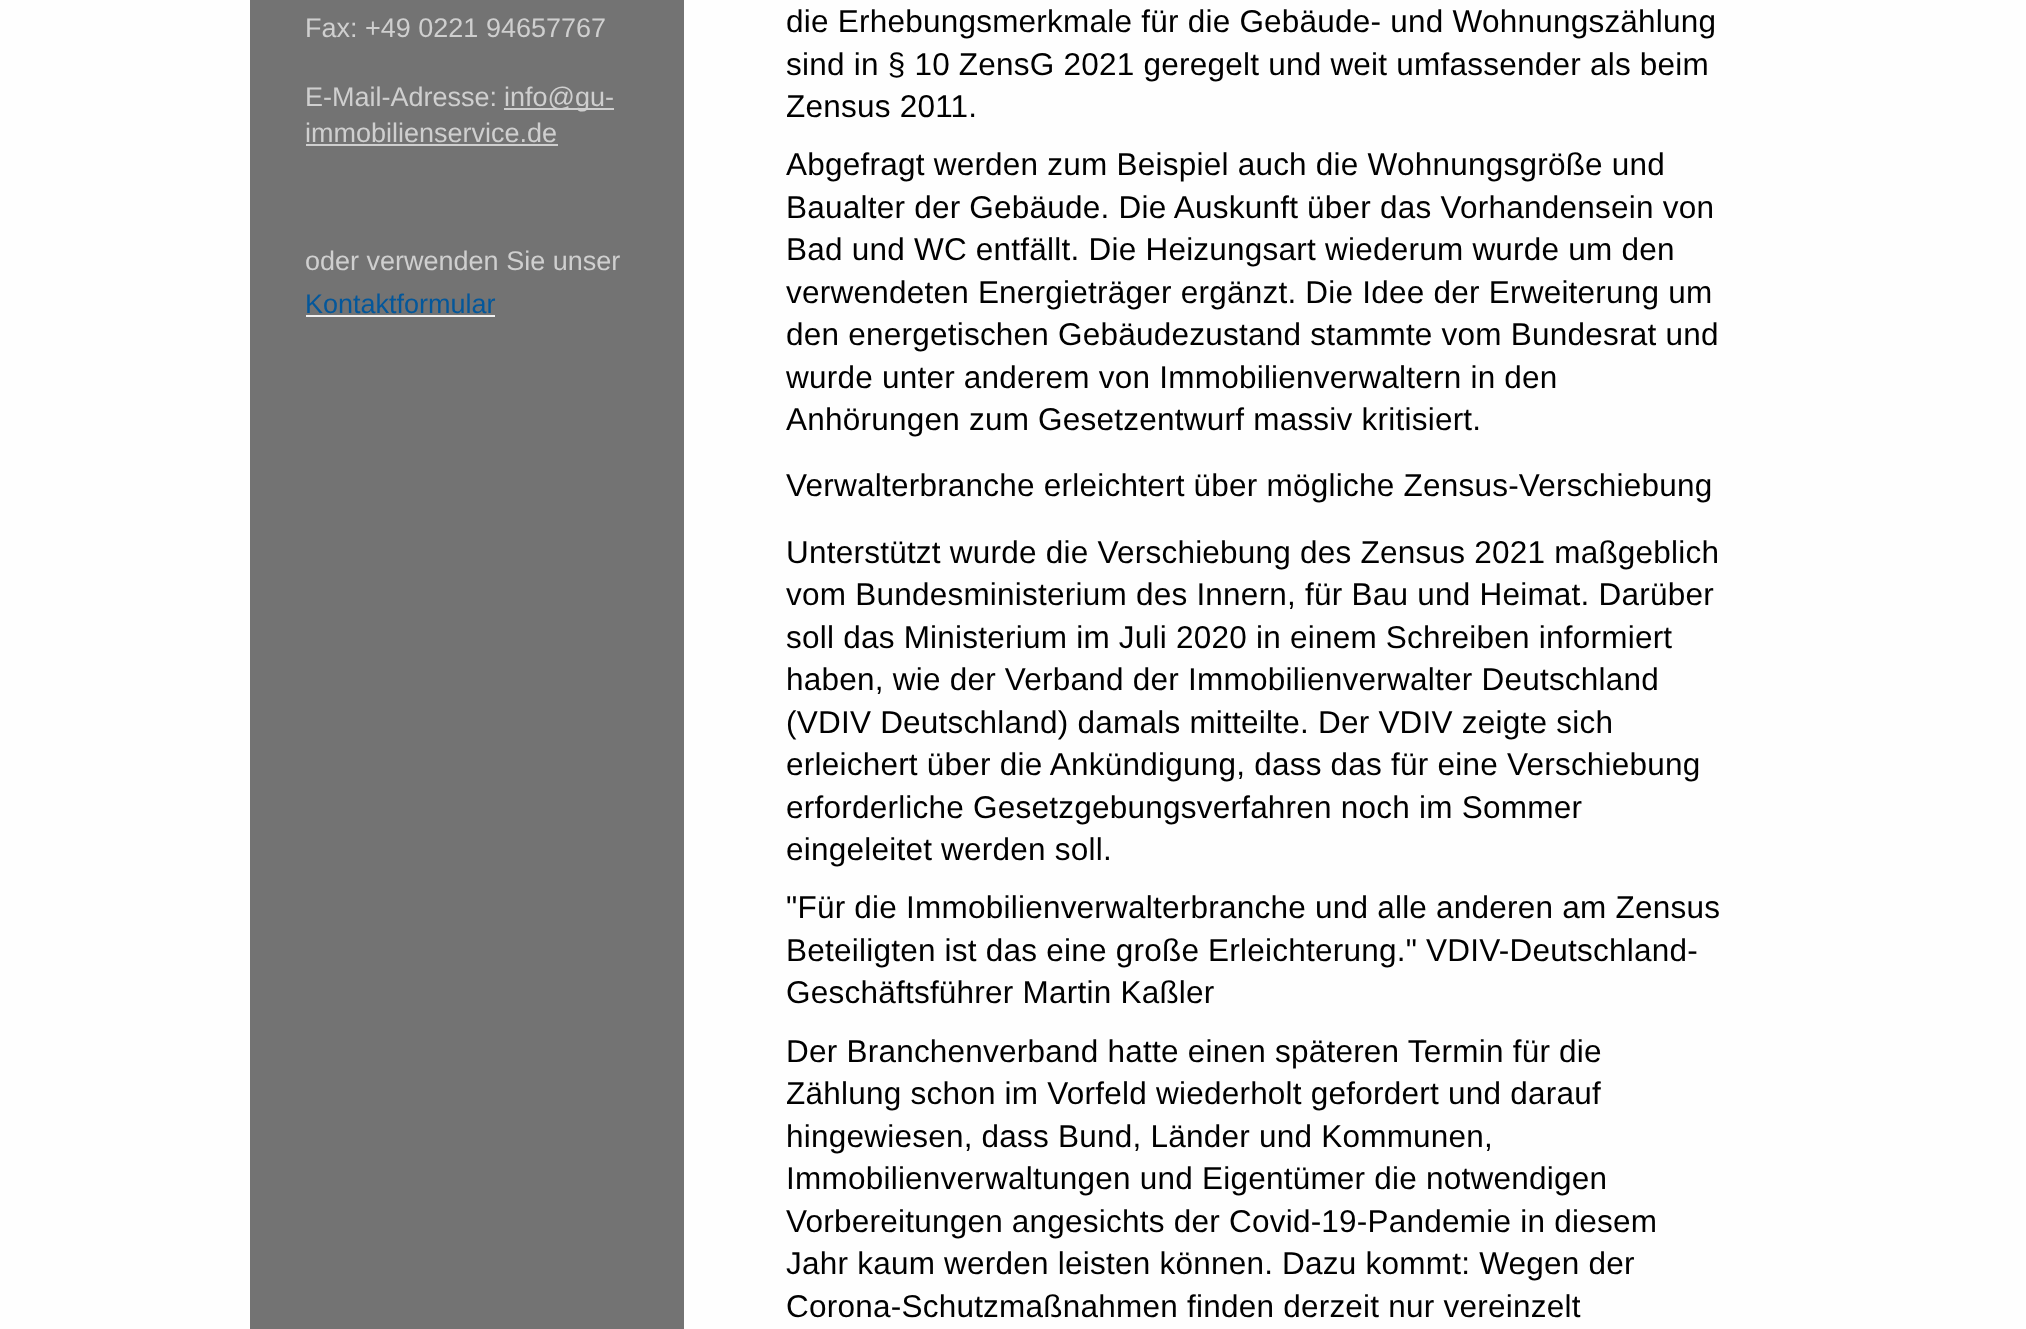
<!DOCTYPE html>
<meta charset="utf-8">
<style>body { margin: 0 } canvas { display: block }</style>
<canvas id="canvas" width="2026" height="1329"></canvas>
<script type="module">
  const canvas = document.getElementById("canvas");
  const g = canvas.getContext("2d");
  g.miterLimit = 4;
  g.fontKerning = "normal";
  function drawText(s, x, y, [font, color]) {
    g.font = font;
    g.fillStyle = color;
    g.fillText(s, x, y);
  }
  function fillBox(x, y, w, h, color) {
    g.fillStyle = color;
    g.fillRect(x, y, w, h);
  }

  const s1 = ["31.5px Liberation Sans", "#000000"];
  const s2 = ["27px Liberation Sans", "#CFCFCF"];
  const s3 = ["27px Liberation Sans", "#03579B"];

  fillBox(0, 0, 2026, 1329, "#FEFEFE");
  fillBox(250, 0, 434, 1329, "#737373");
  g.letterSpacing = "0.23px";
  drawText("die Erhebungsmerkmale für die Gebäude- und Wohnungszählung", 786, 32, s1);
  drawText("sind in § 10 ZensG 2021 geregelt und weit umfassender als beim", 786, 75, s1);
  drawText("Zensus 2011.", 786, 117, s1);
  drawText("Abgefragt werden zum Beispiel auch die Wohnungsgröße und", 786, 175, s1);
  drawText("Baualter der Gebäude. Die Auskunft über das Vorhandensein von", 786, 218, s1);
  drawText("Bad und WC entfällt. Die Heizungsart wiederum wurde um den", 786, 260, s1);
  drawText("verwendeten Energieträger ergänzt. Die Idee der Erweiterung um", 786, 303, s1);
  drawText("den energetischen Gebäudezustand stammte vom Bundesrat und", 786, 345, s1);
  drawText("wurde unter anderem von Immobilienverwaltern in den", 786, 388, s1);
  drawText("Anhörungen zum Gesetzentwurf massiv kritisiert.", 786, 430, s1);
  drawText("Verwalterbranche erleichtert über mögliche Zensus-Verschiebung", 786, 496, s1);
  drawText("Unterstützt wurde die Verschiebung des Zensus 2021 maßgeblich", 786, 563, s1);
  drawText("vom Bundesministerium des Innern, für Bau und Heimat. Darüber", 786, 605, s1);
  drawText("soll das Ministerium im Juli 2020 in einem Schreiben informiert", 786, 648, s1);
  drawText("haben, wie der Verband der Immobilienverwalter Deutschland", 786, 690, s1);
  drawText("(VDIV Deutschland) damals mitteilte. Der VDIV zeigte sich", 786, 733, s1);
  drawText("erleichert über die Ankündigung, dass das für eine Verschiebung", 786, 775, s1);
  drawText("erforderliche Gesetzgebungsverfahren noch im Sommer", 786, 818, s1);
  drawText("eingeleitet werden soll.", 786, 860, s1);
  drawText("\"Für die Immobilienverwalterbranche und alle anderen am Zensus", 786, 918, s1);
  drawText("Beteiligten ist das eine große Erleichterung.\" VDIV-Deutschland-", 786, 961, s1);
  drawText("Geschäftsführer Martin Kaßler", 786, 1003, s1);
  drawText("Der Branchenverband hatte einen späteren Termin für die", 786, 1062, s1);
  drawText("Zählung schon im Vorfeld wiederholt gefordert und darauf", 786, 1104, s1);
  drawText("hingewiesen, dass Bund, Länder und Kommunen,", 786, 1147, s1);
  drawText("Immobilienverwaltungen und Eigentümer die notwendigen", 786, 1189, s1);
  drawText("Vorbereitungen angesichts der Covid-19-Pandemie in diesem", 786, 1232, s1);
  drawText("Jahr kaum werden leisten können. Dazu kommt: Wegen der", 786, 1274, s1);
  drawText("Corona-Schutzmaßnahmen finden derzeit nur vereinzelt", 786, 1317, s1);
  g.letterSpacing = "0px";
  drawText("Fax: +49 0221 94657767", 305, 37, s2);
  drawText("E-Mail-Adresse:", 305, 106, s2);
  fillBox(504, 108, 110, 2, "#CFCFCF");
  drawText("info@gu-", 504, 106, s2);
  drawText("immobilienservice.de", 305, 142, s2);
  fillBox(306, 144, 252, 2, "#CFCFCF");
  drawText("oder verwenden Sie unser", 305, 270, s2);
  drawText("Kontaktformular", 305, 313, s3);
  fillBox(306, 315, 189, 2, "#F1F1F1");
</script>
